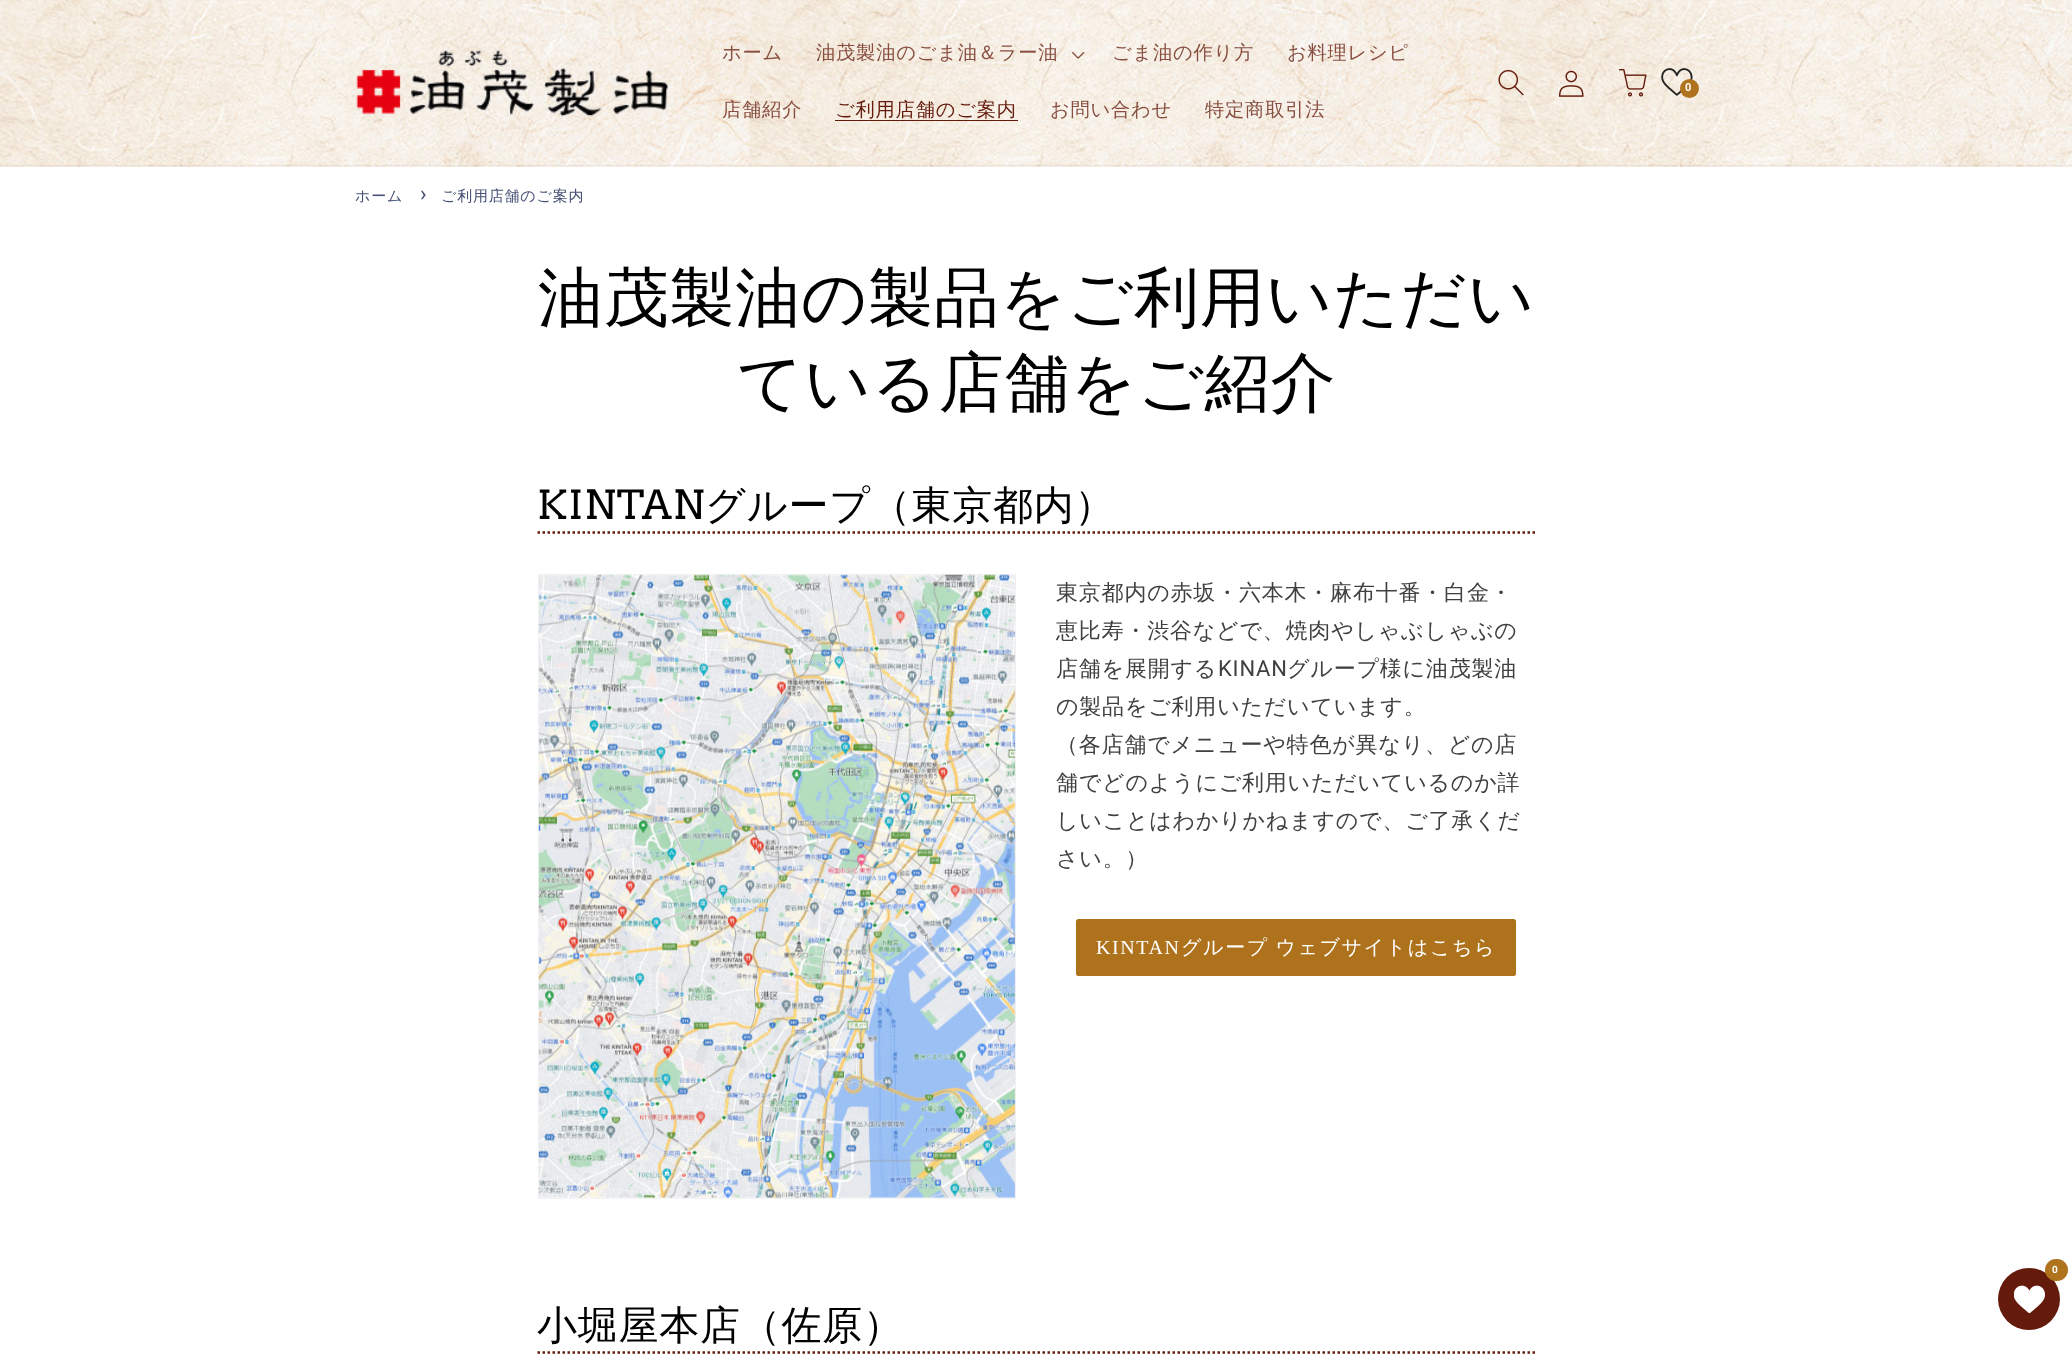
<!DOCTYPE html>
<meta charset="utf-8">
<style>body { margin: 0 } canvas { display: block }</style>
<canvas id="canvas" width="2072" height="1355"></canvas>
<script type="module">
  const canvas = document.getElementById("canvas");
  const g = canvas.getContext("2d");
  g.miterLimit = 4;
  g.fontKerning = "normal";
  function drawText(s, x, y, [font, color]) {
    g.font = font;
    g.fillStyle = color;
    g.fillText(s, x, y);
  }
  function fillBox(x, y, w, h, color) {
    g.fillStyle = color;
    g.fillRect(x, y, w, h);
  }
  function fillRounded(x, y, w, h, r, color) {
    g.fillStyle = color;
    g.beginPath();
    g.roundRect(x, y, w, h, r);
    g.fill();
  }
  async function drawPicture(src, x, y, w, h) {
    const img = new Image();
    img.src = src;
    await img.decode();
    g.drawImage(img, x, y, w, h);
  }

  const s1 = ["500 19.25px WenQuanYi Zen Hei", "#884F41"];
  const s2 = ["500 19.25px WenQuanYi Zen Hei", "#641B0C"];
  const s3 = ["bold 11px Roboto", "#FFFFFF"];
  const s4 = ["500 15px WenQuanYi Zen Hei", "#465076"];
  const s5 = ["22px Roboto", "#465076"];
  const s6 = ["500 65px WenQuanYi Zen Hei", "#000000"];
  const s7 = ["40px Arvo", "#000000"];
  const s8 = ["500 40px WenQuanYi Zen Hei", "#000000"];
  const s9 = ["500 22px WenQuanYi Zen Hei", "#404040"];
  const s10 = ["22px Roboto", "#404040"];
  const s11 = ["20px Liberation Serif", "#FFFFFF"];
  const s12 = ["500 20px WenQuanYi Zen Hei", "#FFFFFF"];
  const s13 = ["bold 10px Roboto", "#FFFFFF"];

  fillBox(0, 0, 2072, 1355, "#FFFFFF");
  await drawPicture("pic1.png", 0, 0, 2072, 167);
  fillBox(0, 165, 2072, 1, "rgba(100, 27, 12, 0.08)");
  await drawPicture("pic2.png", 356, 49, 312, 68);
  g.letterSpacing = "0.8px";
  drawText("ホーム", 722, 59, s1);
  drawText("油茂製油のごま油＆ラー油", 816, 59, s1);
  await drawPicture("pic3.png", 1072, 52, 13, 7);
  drawText("ごま油の作り方", 1112, 59, s1);
  drawText("お料理レシピ", 1287, 59, s1);
  drawText("店舗紹介", 722, 116, s1);
  drawText("ご利用店舗のご案内", 835, 116, s2);
  fillBox(835, 120, 183, 1, "#641B0C");
  drawText("お問い合わせ", 1050, 116, s1);
  drawText("特定商取引法", 1205, 116, s1);
  await drawPicture("pic4.png", 1498, 69, 26, 27);
  await drawPicture("pic5.png", 1558, 70, 26, 27);
  await drawPicture("pic6.png", 1619, 69, 28, 28);
  await drawPicture("pic7.png", 1661, 68, 32, 28);
  g.fillStyle = "#B0731D";
  g.beginPath();
  g.arc(1689.5, 88.5, 9.5, 0, Math.PI * 2);
  g.fill();
  drawText("0", 1685, 91, s3);
  drawText("ホーム", 355, 201, s4);
  drawText("›", 420, 201, s5);
  drawText("ご利用店舗のご案内", 441, 201, s4);
  g.letterSpacing = "0.75px";
  drawText("油茂製油の製品をご利用いただい", 538, 320, s6);
  drawText("ている店舗をご紹介", 737, 405, s6);
  g.beginPath();
  g.moveTo(537.5, 532.5);
  g.lineTo(1535, 532.5);
  g.strokeStyle = "#641B0C";
  g.lineWidth = 2.5;
  g.setLineDash([2.5, 2.5]);
  g.stroke();
  drawText("KINTAN", 537, 519, s7);
  drawText("グループ（東京都内）", 705, 519, s8);
  g.strokeStyle = "#F2F2F2";
  g.lineWidth = 1;
  g.setLineDash([]);
  g.strokeRect(538.5, 574.5, 477, 624);
  await drawPicture("pic8.png", 538, 574, 478, 624);
  g.letterSpacing = "0.8px";
  drawText("東京都内の赤坂・六本木・麻布十番・白金・", 1056, 600, s9);
  drawText("恵比寿・渋谷などで、焼肉やしゃぶしゃぶの", 1056, 638, s9);
  drawText("店舗を展開する", 1056, 676, s9);
  drawText("KINAN", 1218, 676, s10);
  drawText("グループ様に油茂製油", 1287, 676, s9);
  drawText("の製品をご利用いただいています。", 1056, 714, s9);
  drawText("（各店舗でメニューや特色が異なり、どの店", 1056, 752, s9);
  drawText("舗でどのようにご利用いただいているのか詳", 1056, 790, s9);
  drawText("しいことはわかりかねますので、ご了承くだ", 1056, 828, s9);
  drawText("さい。）", 1056, 866, s9);
  fillRounded(1076, 919, 440, 57, 2.5, "#AF721C");
  g.letterSpacing = "1.6px";
  drawText("KINTAN", 1096, 954, s11);
  g.wordSpacing = "-1px";
  drawText("グループ ウェブサイトはこちら", 1181, 954, s12);
  g.beginPath();
  g.moveTo(537.5, 1352.5);
  g.lineTo(1535, 1352.5);
  g.strokeStyle = "#641B0C";
  g.lineWidth = 2.5;
  g.setLineDash([2.5, 2.5]);
  g.stroke();
  g.letterSpacing = "0.75px";
  g.wordSpacing = "0px";
  drawText("小堀屋本店（佐原）", 537, 1339, s8);
  g.fillStyle = "#641B0C";
  g.beginPath();
  g.arc(2029, 1299, 31, 0, Math.PI * 2);
  g.fill();
  fillRounded(2045, 1259, 23, 22, 11, "#B0731D");
  g.letterSpacing = "0.8px";
  drawText("0", 2052, 1273, s13);
  await drawPicture("pic9.png", 2014, 1285, 31, 28);
</script>
